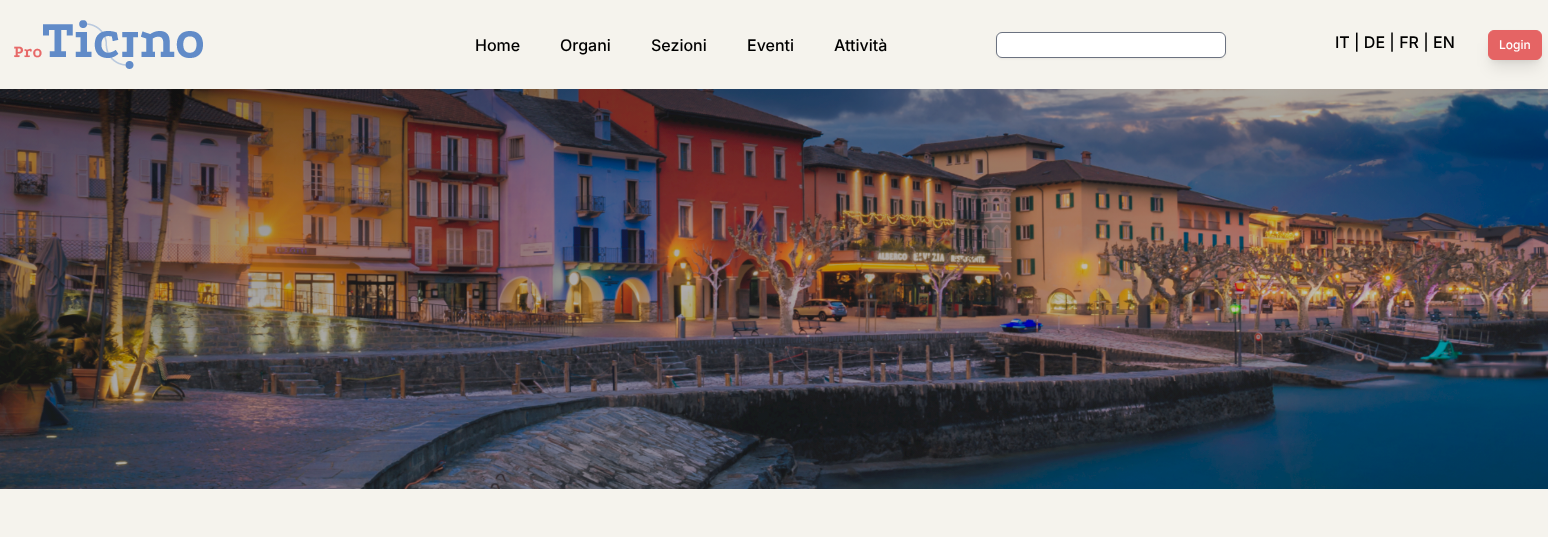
<!DOCTYPE html>
<meta charset="utf-8">
<style>body { margin: 0 } canvas { display: block }</style>
<canvas id="canvas" width="1548" height="537"></canvas>
<script type="module">
  const canvas = document.getElementById("canvas");
  const g = canvas.getContext("2d");
  g.miterLimit = 4;
  g.fontKerning = "normal";
  function drawText(s, x, y, [font, color]) {
    g.font = font;
    g.fillStyle = color;
    g.fillText(s, x, y);
  }
  function fillBox(x, y, w, h, color) {
    g.fillStyle = color;
    g.fillRect(x, y, w, h);
  }
  async function drawPicture(src, x, y, w, h) {
    const img = new Image();
    img.src = src;
    await img.decode();
    g.drawImage(img, x, y, w, h);
  }

  const s1 = ["500 16px Inter", "#000000"];
  const s2 = ["500 12px Inter", "#FFFFFF"];

  fillBox(0, 0, 1548, 537, "#F5F3ED");
  await drawPicture("pic1.png", 14, 20, 189, 49);
  drawText("Home", 475, 51, s1);
  drawText("Organi", 560, 51, s1);
  drawText("Sezioni", 651, 51, s1);
  drawText("Eventi", 747, 51, s1);
  drawText("Attività", 834, 51, s1);
  g.fillStyle = "rgba(0, 0, 0, 0.05)";
  g.filter = "blur(1px)";
  g.beginPath();
  g.roundRect(996, 33, 230, 26, 6);
  g.fill();
  g.filter = "none";
  g.fillStyle = "#FFFFFF";
  g.beginPath();
  g.roundRect(996.5, 32.5, 229, 25, 5.5);
  g.fill();
  g.strokeStyle = "#6B7280";
  g.stroke();
  drawText("IT | DE | FR | EN", 1335, 48, s1);
  g.fillStyle = "rgba(0, 0, 0, 0.1)";
  g.filter = "blur(3px)";
  g.beginPath();
  g.roundRect(1492, 38, 46, 22, 2);
  g.fill();
  g.filter = "none";
  await drawPicture("pic2.png", 0, 89, 1548, 400);
  g.filter = "blur(7.5px)";
  g.beginPath();
  g.roundRect(1491, 43, 48, 24, 3);
  g.fill();
  g.filter = "none";
  g.fillStyle = "#E56464";
  g.beginPath();
  g.roundRect(1488.5, 30.5, 53, 29, 5.5);
  g.fill();
  g.strokeStyle = "#E56464";
  g.stroke();
  drawText("Login", 1499, 49, s2);
</script>
